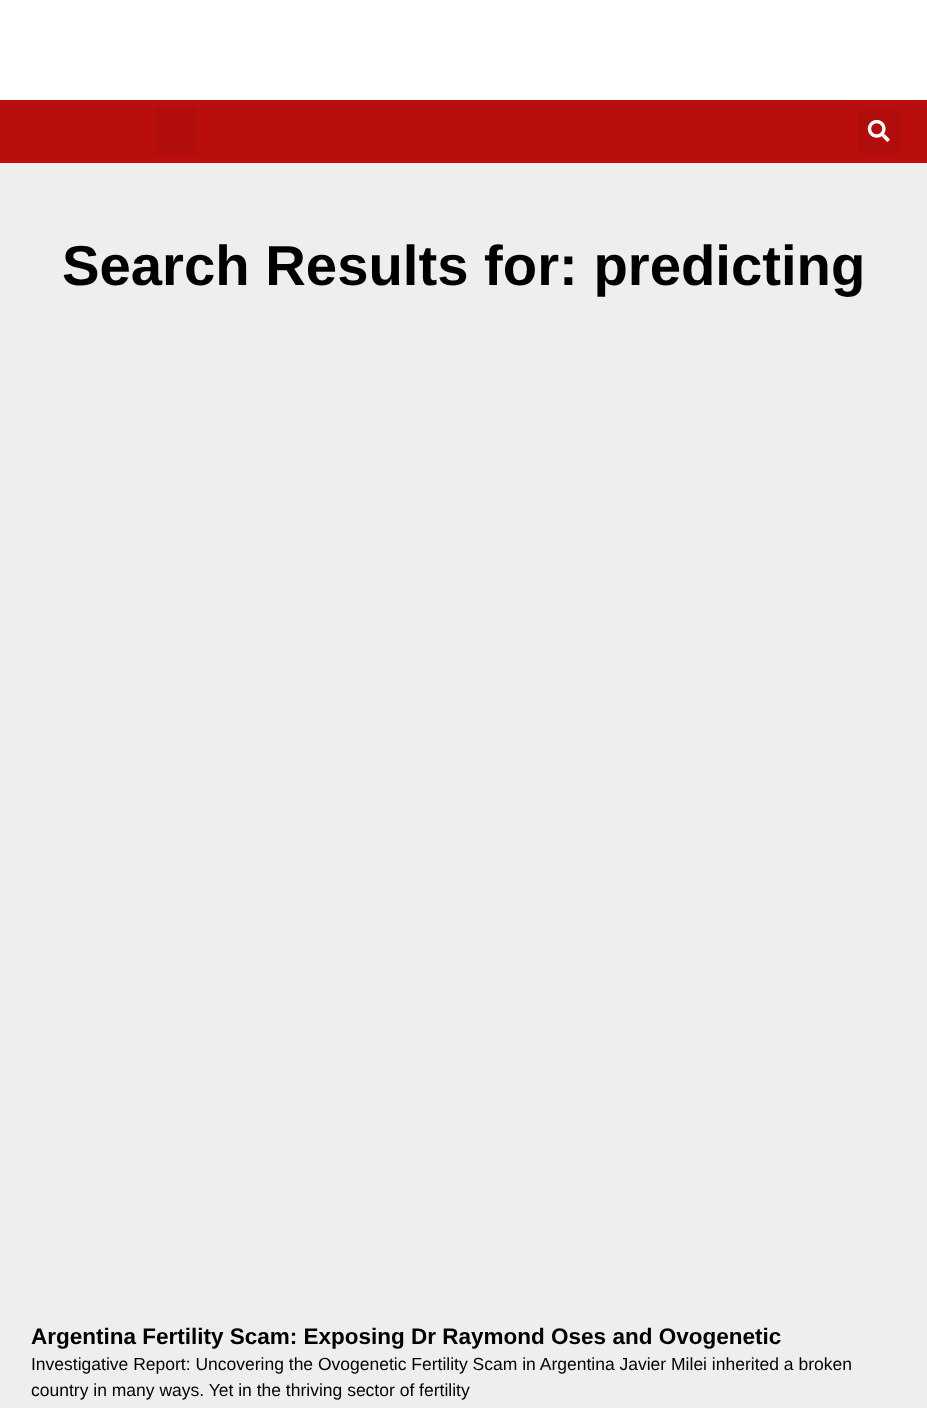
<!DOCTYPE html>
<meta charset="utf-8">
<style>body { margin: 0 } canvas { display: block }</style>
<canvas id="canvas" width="927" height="1408"></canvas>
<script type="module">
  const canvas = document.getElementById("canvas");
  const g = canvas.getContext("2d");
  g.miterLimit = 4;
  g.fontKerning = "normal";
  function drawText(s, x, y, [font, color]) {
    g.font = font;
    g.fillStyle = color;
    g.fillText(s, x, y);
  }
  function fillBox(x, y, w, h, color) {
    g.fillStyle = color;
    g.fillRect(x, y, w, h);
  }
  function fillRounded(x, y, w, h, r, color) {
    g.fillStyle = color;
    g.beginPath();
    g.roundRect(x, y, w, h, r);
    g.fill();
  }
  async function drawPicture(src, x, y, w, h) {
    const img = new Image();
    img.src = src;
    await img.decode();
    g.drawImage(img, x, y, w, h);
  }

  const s1 = ["bold 56.25px Liberation Sans", "#000000"];
  const s2 = ["bold 22.5px Liberation Sans", "#000000"];
  const s3 = ["17.5px Liberation Sans", "#000000"];

  fillBox(0, 0, 927, 1408, "#FFFFFF");
  fillBox(0, 100, 927, 63, "#BA0E0E");
  fillBox(156, 108, 40, 47, "#B10D0D");
  fillRounded(858, 110, 43, 44, 4, "#B10D0D");
  await drawPicture("pic1.png", 867, 119, 23, 23);
  fillBox(0, 163, 927, 1245, "#EEEEEE");
  drawText("Search Results for: predicting", 62, 285, s1);
  drawText("Argentina Fertility Scam: Exposing Dr Raymond Oses and Ovogenetic", 31, 1344, s2);
  drawText("Investigative Report: Uncovering the Ovogenetic Fertility Scam in Argentina Javier Milei inherited a broken", 31, 1370, s3);
  drawText("country in many ways. Yet in the thriving sector of fertility", 31, 1396, s3);
</script>
